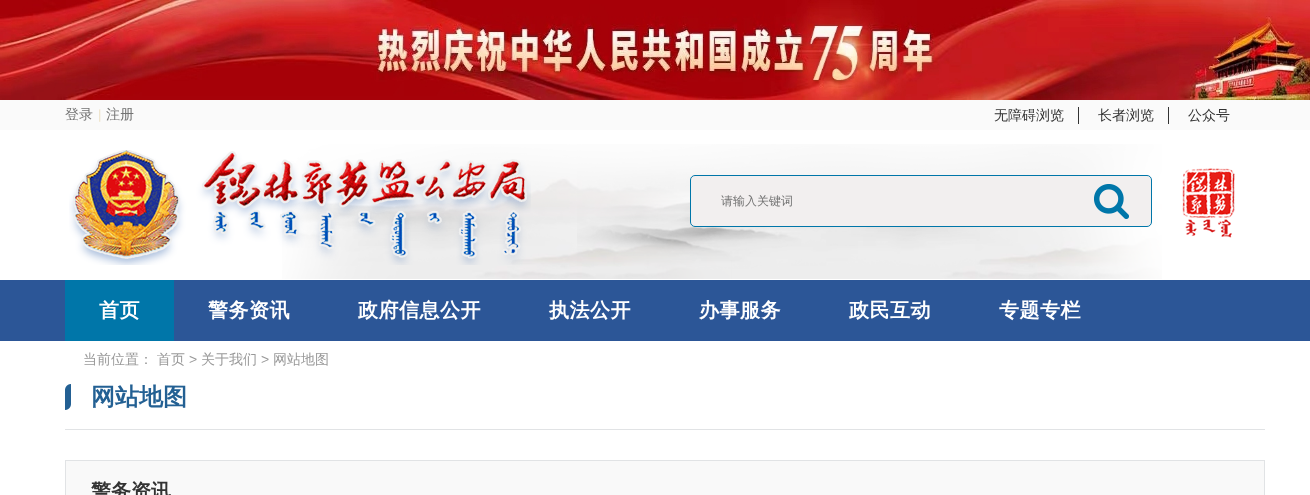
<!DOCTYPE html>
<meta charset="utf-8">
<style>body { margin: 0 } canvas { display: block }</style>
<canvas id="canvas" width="1310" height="495"></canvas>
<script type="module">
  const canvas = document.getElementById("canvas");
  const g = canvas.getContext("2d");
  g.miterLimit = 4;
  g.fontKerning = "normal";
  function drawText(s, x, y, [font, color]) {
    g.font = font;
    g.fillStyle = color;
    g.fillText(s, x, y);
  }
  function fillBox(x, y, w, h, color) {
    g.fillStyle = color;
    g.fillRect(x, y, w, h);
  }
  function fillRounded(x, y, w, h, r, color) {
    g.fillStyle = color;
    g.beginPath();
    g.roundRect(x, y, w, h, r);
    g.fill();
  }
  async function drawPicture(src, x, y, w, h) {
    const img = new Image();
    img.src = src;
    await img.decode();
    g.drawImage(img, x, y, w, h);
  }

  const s1 = ["500 14px WenQuanYi Zen Hei", "#737373"];
  const s2 = ["13px Liberation Sans", "#EEE3C8"];
  const s3 = ["500 14px WenQuanYi Zen Hei", "#333333"];
  const s4 = ["500 12px WenQuanYi Zen Hei", "#737373"];
  const s5 = ["bold 20px WenQuanYi Zen Hei", "#FFFFFF"];
  const s6 = ["500 14px WenQuanYi Zen Hei", "#999999"];
  const s7 = ["14px Liberation Sans", "#999999"];
  const s8 = ["bold 24px WenQuanYi Zen Hei", "#236093"];
  const s9 = ["bold 20px WenQuanYi Zen Hei", "#333333"];

  fillBox(0, 0, 1310, 495, "#FFFFFF");
  await drawPicture("pic1.png", 0, 0, 1310, 100);
  fillBox(0, 100, 1310, 30, "#FAFAFA");
  drawText("登录", 65, 119, s1);
  drawText("|", 98, 119, s2);
  drawText("注册", 106, 119, s1);
  drawText("无障碍浏览", 994, 120, s3);
  fillBox(1078, 107, 1, 17, "#333333");
  drawText("长者浏览", 1098, 120, s3);
  fillBox(1168, 107, 1, 17, "#333333");
  drawText("公众号", 1188, 120, s3);
  await drawPicture("pic2.png", 282, 144, 880, 135);
  await drawPicture("pic3.png", 69, 150, 462, 115);
  g.fillStyle = "#F2EFEF";
  g.beginPath();
  g.roundRect(690.5, 175.5, 461, 51, 4.5);
  g.fill();
  g.strokeStyle = "#0076A9";
  g.stroke();
  drawText("请输入关键词", 721, 205, s4);
  fillRounded(1071, 177, 80, 47, 5, "#F2EFEF");
  await drawPicture("pic4.png", 1094, 184, 35, 35);
  await drawPicture("pic5.png", 1182, 168, 53, 70);
  fillBox(0, 280, 1310, 61, "#2C5697");
  fillBox(65, 280, 109, 61, "#0076A9");
  g.letterSpacing = "0.5px";
  drawText("首页", 99, 317, s5);
  drawText("警务资讯", 208, 317, s5);
  drawText("政府信息公开", 358, 317, s5);
  drawText("执法公开", 549, 317, s5);
  drawText("办事服务", 699, 317, s5);
  drawText("政民互动", 849, 317, s5);
  drawText("专题专栏", 999, 317, s5);
  g.letterSpacing = "0px";
  drawText("当前位置：", 83, 364, s6);
  drawText("首页", 157, 364, s6);
  drawText(">", 189, 364, s7);
  drawText("关于我们", 201, 364, s6);
  drawText(">", 261, 364, s7);
  drawText("网站地图", 273, 364, s6);
  fillBox(65, 429, 1200, 1, "#E1E3E5");
  await drawPicture("pic6.png", 65, 384, 6, 26);
  drawText("网站地图", 91, 405, s8);
  g.strokeStyle = "#E1E3E5";
  g.strokeRect(65.5, 460.5, 1199, 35);
  fillBox(66, 461, 1198, 34, "#F9F9F9");
  drawText("警务资讯", 91, 498, s9);
</script>
